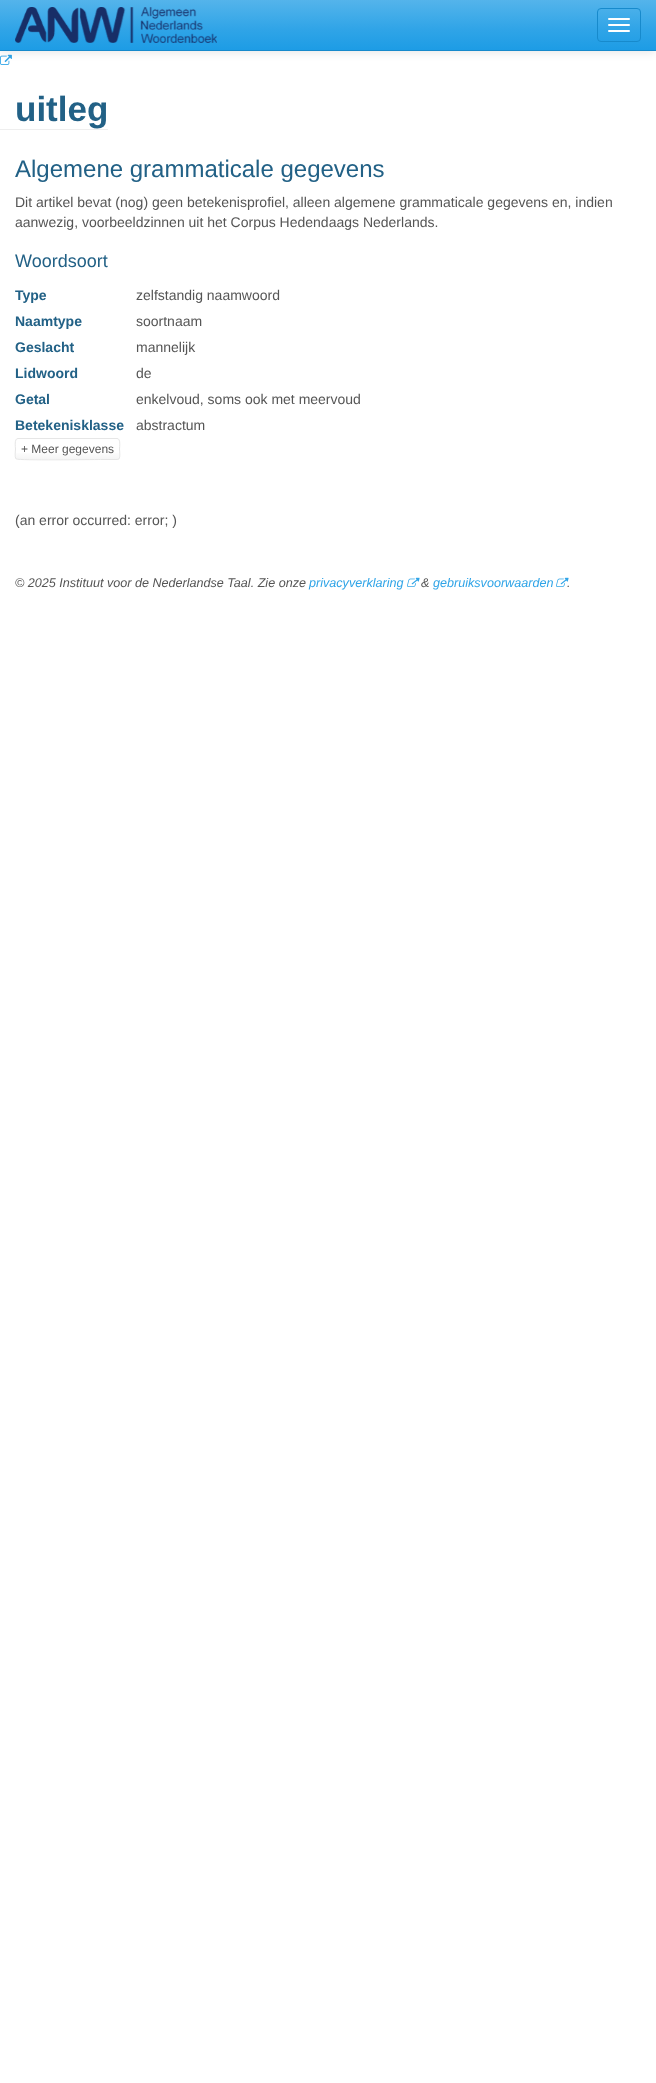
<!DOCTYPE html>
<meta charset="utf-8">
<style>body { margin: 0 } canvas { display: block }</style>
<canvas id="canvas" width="656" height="2083"></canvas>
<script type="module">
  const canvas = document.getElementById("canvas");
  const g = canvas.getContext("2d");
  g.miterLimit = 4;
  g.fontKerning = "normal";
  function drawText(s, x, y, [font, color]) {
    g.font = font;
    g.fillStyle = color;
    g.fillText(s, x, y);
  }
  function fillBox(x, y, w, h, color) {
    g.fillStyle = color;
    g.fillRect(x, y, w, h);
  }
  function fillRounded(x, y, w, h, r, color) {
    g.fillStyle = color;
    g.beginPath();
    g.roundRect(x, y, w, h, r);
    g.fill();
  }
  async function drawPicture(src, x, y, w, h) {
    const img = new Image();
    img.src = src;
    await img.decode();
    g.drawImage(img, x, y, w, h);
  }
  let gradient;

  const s1 = ["bold 35px Liberation Sans", "#226186"];
  const s2 = ["24px Liberation Sans", "#226186"];
  const s3 = ["14px Liberation Sans", "#555555"];
  const s4 = ["18px Liberation Sans", "#226186"];
  const s5 = ["bold 14px Liberation Sans", "#226186"];
  const s6 = ["12px Liberation Sans", "#555555"];
  const s7 = ["italic 12.6px Liberation Sans", "#555555"];
  const s8 = ["italic 12.6px Liberation Sans", "#2FA4E7"];

  fillBox(0, 0, 656, 2083, "#FFFFFF");
  await drawPicture("pic2.png", 0, 54, 12, 11);
  g.fillStyle = "rgba(0, 0, 0, 0.1)";
  g.filter = "blur(5px)";
  g.beginPath();
  g.rect(0, 1, 656, 51);
  g.fill();
  g.filter = "none";
  gradient = g.createLinearGradient(328, 0, 328, 50);
  gradient.addColorStop(0, "#54B4EB");
  gradient.addColorStop(0.6, "#2FA4E7");
  gradient.addColorStop(1, "#1D9CE5");
  g.fillStyle = gradient;
  g.fillRect(0, 0, 656, 50);
  fillBox(0, 50, 656, 1, "#178ACC");
  await drawPicture("pic1.png", 15, 7, 202, 36);
  g.beginPath();
  g.roundRect(597.5, 8.5, 43, 33, 3.5);
  g.strokeStyle = "#178ACC";
  g.stroke();
  fillRounded(608, 18, 22, 2, 1, "#FFFFFF");
  fillRounded(608, 24, 22, 2, 1, "#FFFFFF");
  fillRounded(608, 30, 22, 2, 1, "#FFFFFF");
  fillBox(0, 129, 108, 1, "#EEEEEE");
  drawText("uitleg", 15, 121, s1);
  drawText("Algemene grammaticale gegevens", 15, 177, s2);
  drawText("Dit artikel bevat (nog) geen betekenisprofiel, alleen algemene grammaticale gegevens en, indien", 15, 207, s3);
  drawText("aanwezig, voorbeeldzinnen uit het Corpus Hedendaags Nederlands.", 15, 227, s3);
  drawText("Woordsoort", 15, 267, s4);
  drawText("Type", 15, 300, s5);
  drawText("zelfstandig naamwoord", 136, 300, s3);
  drawText("Naamtype", 15, 326, s5);
  drawText("soortnaam", 136, 326, s3);
  drawText("Geslacht", 15, 352, s5);
  drawText("mannelijk", 136, 352, s3);
  drawText("Lidwoord", 15, 378, s5);
  drawText("de", 136, 378, s3);
  drawText("Getal", 15, 404, s5);
  drawText("enkelvoud, soms ook met meervoud", 136, 404, s3);
  drawText("Betekenisklasse", 15, 430, s5);
  drawText("abstractum", 136, 430, s3);
  gradient = g.createLinearGradient(68, 439, 68, 459);
  gradient.addColorStop(0, "#FFFFFF");
  gradient.addColorStop(0.6, "#FFFFFF");
  gradient.addColorStop(1, "#F5F5F5");
  g.fillStyle = gradient;
  g.fillRect(16, 453, 103, 6);
  g.beginPath();
  g.moveTo(119, 459);
  g.lineTo(117, 459.5);
  g.lineTo(100.5, 459.5);
  g.bezierCurveTo(92, 459.5, 18.5, 460.5, 16.5, 459);
  g.lineTo(16, 459);
  g.strokeStyle = "#E6E6E6";
  g.stroke();
  g.beginPath();
  g.moveTo(16, 459);
  g.bezierCurveTo(14.5, 457, 15.5, 451, 15.5, 449);
  g.bezierCurveTo(15.5, 447, 14, 438.5, 18, 438.5);
  g.lineTo(117, 438.5);
  g.bezierCurveTo(121, 438.5, 119.5, 447, 119.5, 449);
  g.bezierCurveTo(119.5, 451, 120.5, 457, 119, 459);
  g.stroke();
  drawText("+ Meer gegevens", 21, 453, s6);
  drawText("(an error occurred: error; )", 15, 525, s3);
  drawText("© 2025 Instituut voor de Nederlandse Taal. Zie onze", 15, 587, s7);
  drawText("privacyverklaring", 309, 587, s8);
  await drawPicture("pic3.png", 407, 577, 13, 10);
  drawText("&", 421, 587, s7);
  drawText("gebruiksvoorwaarden", 433, 587, s8);
  await drawPicture("pic3.png", 556, 577, 13, 10);
  drawText(".", 567, 587, s7);
</script>
